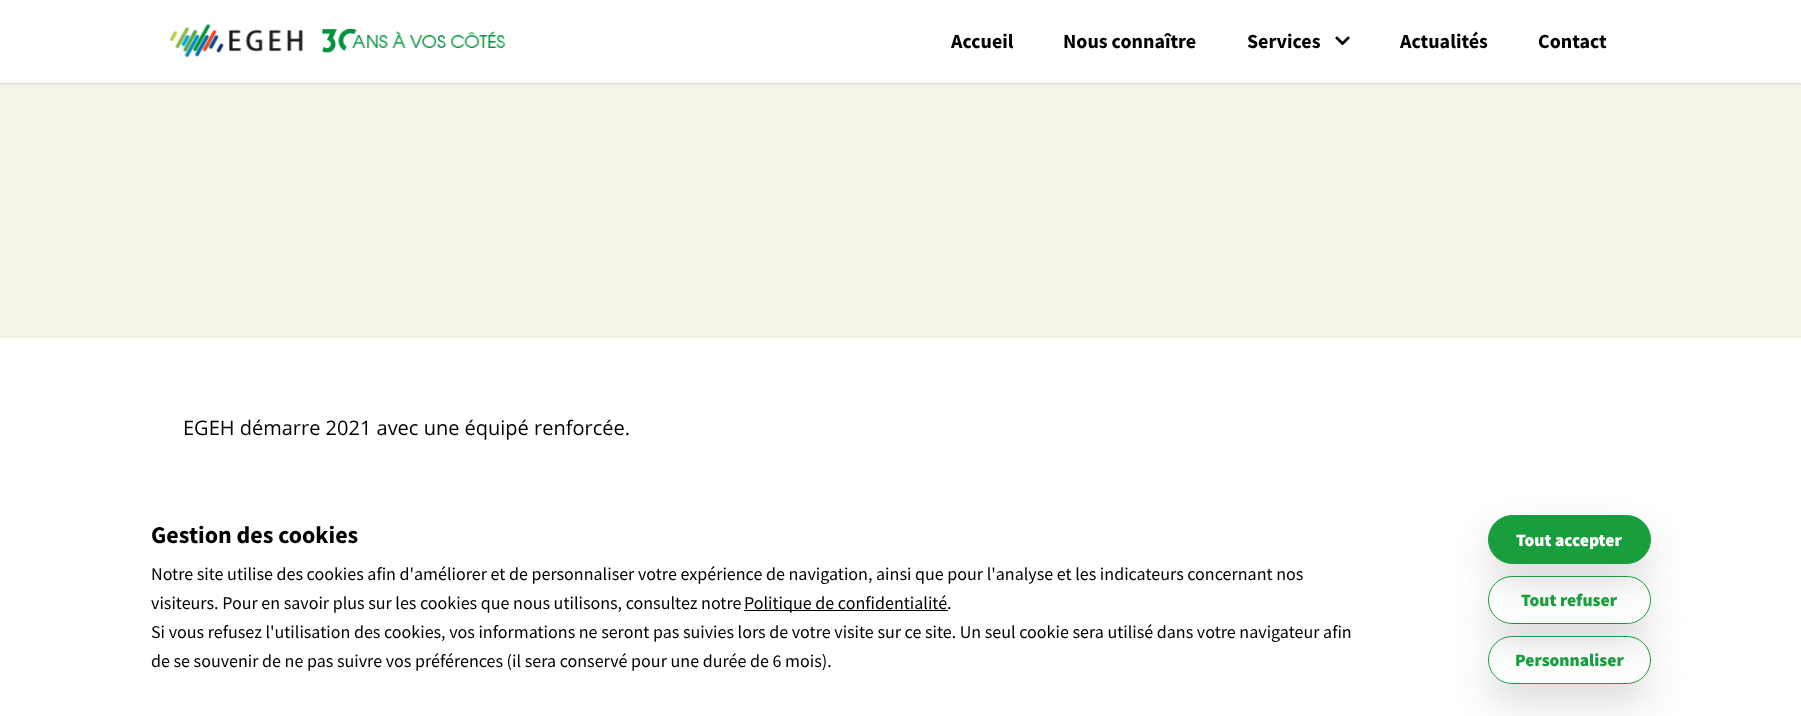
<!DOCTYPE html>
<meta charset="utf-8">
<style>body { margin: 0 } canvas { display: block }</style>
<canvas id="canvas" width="1801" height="716"></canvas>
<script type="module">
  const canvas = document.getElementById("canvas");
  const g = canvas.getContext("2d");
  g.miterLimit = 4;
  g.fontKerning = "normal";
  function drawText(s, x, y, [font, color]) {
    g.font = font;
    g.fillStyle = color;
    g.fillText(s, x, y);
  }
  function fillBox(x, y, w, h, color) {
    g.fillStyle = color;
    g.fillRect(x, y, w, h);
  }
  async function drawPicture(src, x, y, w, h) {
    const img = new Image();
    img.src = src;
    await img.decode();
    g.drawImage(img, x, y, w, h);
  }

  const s1 = ["bold 20px Source Sans Pro", "#000000"];
  const s2 = ["20px Open Sans", "#000000"];
  const s3 = ["bold 24px Source Sans Pro", "#000000"];
  const s4 = ["18px Source Sans Pro", "#000000"];
  const s5 = ["900 17.5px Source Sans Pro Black", "#FFFFFF"];
  const s6 = ["900 17.5px Source Sans Pro Black", "#199E3D"];

  fillBox(0, 0, 1801, 716, "#FFFFFF");
  fillBox(0, 83, 1801, 255, "#F5F3E8");
  g.fillStyle = "rgba(0, 0, 0, 0.1)";
  g.filter = "blur(1px)";
  g.beginPath();
  g.rect(0, 1, 1801, 83);
  g.fill();
  g.filter = "none";
  fillBox(0, 0, 1801, 83, "#FFFFFF");
  await drawPicture("pic1.png", 169, 23, 337, 34);
  drawText("Accueil", 951, 48, s1);
  drawText("Nous connaître", 1063, 48, s1);
  drawText("Services", 1247, 48, s1);
  await drawPicture("pic2.png", 1335, 36, 15, 10);
  drawText("Actualités", 1400, 48, s1);
  drawText("Contact", 1538, 48, s1);
  drawText("EGEH démarre 2021 avec une équipé renforcée.", 183, 435, s2);
  drawText("Gestion des cookies", 151, 543, s3);
  drawText("Notre site utilise des cookies afin d'améliorer et de personnaliser votre expérience de navigation, ainsi que pour l'analyse et les indicateurs concernant nos", 151, 580, s4);
  drawText("visiteurs. Pour en savoir plus sur les cookies que nous utilisons, consultez notre", 151, 609, s4);
  fillBox(744, 610, 204, 1, "#000000");
  drawText("Politique de confidentialité.", 744, 609, s4);
  drawText("Si vous refusez l'utilisation des cookies, vos informations ne seront pas suivies lors de votre visite sur ce site. Un seul cookie sera utilisé dans votre navigateur afin", 151, 638, s4);
  drawText("de se souvenir de ne pas suivre vos préférences (il sera conservé pour une durée de 6 mois).", 151, 667, s4);
  g.fillStyle = "rgba(0, 0, 0, 0.15)";
  g.filter = "blur(19px)";
  g.beginPath();
  g.roundRect(1489, 535, 161, 46, 23);
  g.fill();
  g.filter = "none";
  g.fillStyle = "#199E3D";
  g.beginPath();
  g.roundRect(1488.5, 515.5, 162, 48, 24);
  g.fill();
  g.strokeStyle = "#199E3D";
  g.stroke();
  drawText("Tout accepter", 1516, 546, s5);
  g.save();
  g.beginPath();
  g.moveTo(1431, 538);
  g.lineTo(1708, 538);
  g.lineTo(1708, 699);
  g.lineTo(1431, 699);
  g.closePath();
  g.moveTo(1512, 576);
  g.lineTo(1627, 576);
  g.bezierCurveTo(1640.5, 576, 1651, 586.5, 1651, 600);
  g.bezierCurveTo(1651, 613.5, 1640.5, 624, 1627, 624);
  g.lineTo(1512, 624);
  g.bezierCurveTo(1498.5, 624, 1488, 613.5, 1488, 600);
  g.bezierCurveTo(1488, 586.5, 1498.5, 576, 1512, 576);
  g.closePath();
  g.clip("evenodd");
  g.fillStyle = "rgba(0, 0, 0, 0.15)";
  g.filter = "blur(19px)";
  g.beginPath();
  g.roundRect(1489, 596, 161, 45, 22.5);
  g.fill();
  g.filter = "none";
  g.restore();
  g.beginPath();
  g.roundRect(1488.5, 576.5, 162, 47, 23.5);
  g.stroke();
  drawText("Tout refuser", 1521, 606, s6);
  g.save();
  g.beginPath();
  g.moveTo(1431, 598);
  g.lineTo(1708, 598);
  g.lineTo(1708, 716);
  g.lineTo(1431, 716);
  g.closePath();
  g.moveTo(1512, 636);
  g.lineTo(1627, 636);
  g.bezierCurveTo(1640.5, 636, 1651, 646.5, 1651, 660);
  g.bezierCurveTo(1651, 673.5, 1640.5, 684, 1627, 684);
  g.lineTo(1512, 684);
  g.bezierCurveTo(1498.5, 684, 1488, 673.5, 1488, 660);
  g.bezierCurveTo(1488, 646.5, 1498.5, 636, 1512, 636);
  g.closePath();
  g.clip("evenodd");
  g.fillStyle = "rgba(0, 0, 0, 0.15)";
  g.filter = "blur(19px)";
  g.beginPath();
  g.roundRect(1489, 656, 161, 45, 22.5);
  g.fill();
  g.filter = "none";
  g.restore();
  g.beginPath();
  g.roundRect(1488.5, 636.5, 162, 47, 23.5);
  g.stroke();
  drawText("Personnaliser", 1515, 666, s6);
</script>
